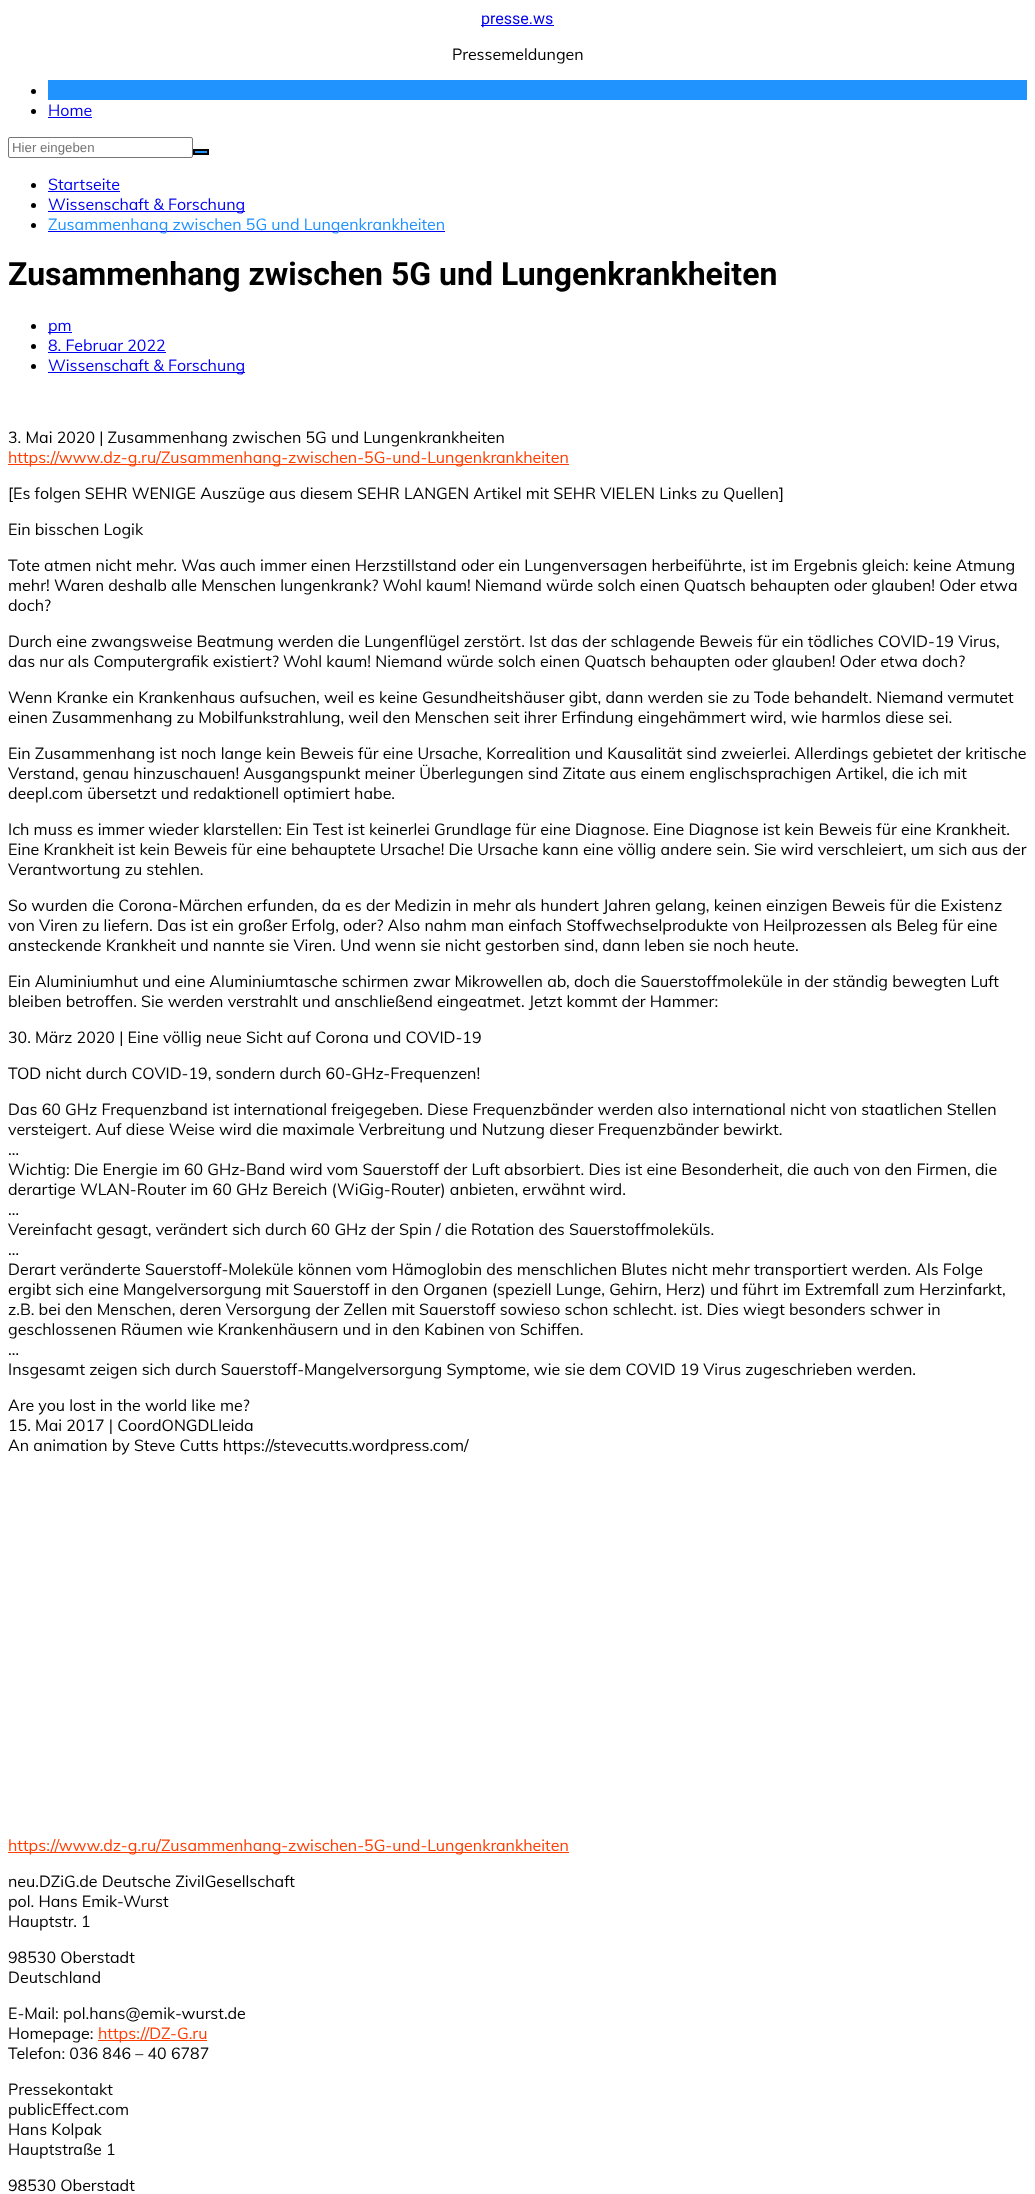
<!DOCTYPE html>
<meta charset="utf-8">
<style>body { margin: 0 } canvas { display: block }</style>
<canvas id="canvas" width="1035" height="2194"></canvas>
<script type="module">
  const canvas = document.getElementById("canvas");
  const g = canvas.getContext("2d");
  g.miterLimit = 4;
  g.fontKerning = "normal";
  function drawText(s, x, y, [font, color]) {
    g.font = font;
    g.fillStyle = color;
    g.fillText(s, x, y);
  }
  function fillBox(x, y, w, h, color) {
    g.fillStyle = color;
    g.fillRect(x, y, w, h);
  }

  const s1 = ["16px Roboto", "#0000EE"];
  const s2 = ["16px Muli", "#000000"];
  const s3 = ["16px Muli", "#0000EE"];
  const s4 = ["13.25px Liberation Sans", "#757575"];
  const s5 = ["16px Muli", "#2193FF"];
  const s6 = ["bold 32px Roboto", "#000000"];
  const s7 = ["16px Muli", "#FF3D00"];

  fillBox(0, 0, 1035, 2194, "#FFFFFF");
  fillBox(481, 25, 73, 1, "#0000EE");
  drawText("presse.ws", 481, 24, s1);
  drawText("Pressemeldungen", 452, 60, s2);
  fillBox(48, 80, 979, 20, "#2193FF");
  g.fillStyle = "#000000";
  g.beginPath();
  g.arc(33.5, 91.5, 2.5, 0, Math.PI * 2);
  g.fill();
  g.beginPath();
  g.arc(33.5, 111.5, 2.5, 0, Math.PI * 2);
  g.fill();
  drawText("Home", 48, 116, s3);
  fillBox(48, 117, 44, 1, "#0000EE");
  g.beginPath();
  g.roundRect(8.5, 137.5, 184, 20, 1.5);
  g.strokeStyle = "#767676";
  g.stroke();
  drawText("Hier eingeben", 12, 152, s4);
  g.fillStyle = "#2193FF";
  g.beginPath();
  g.rect(194, 150, 14, 4);
  g.fill();
  g.strokeStyle = "#000000";
  g.lineWidth = 2;
  g.stroke();
  g.fillStyle = "#000000";
  g.beginPath();
  g.arc(33.5, 185.5, 2.5, 0, Math.PI * 2);
  g.fill();
  drawText("Startseite", 48, 190, s3);
  fillBox(48, 191, 72, 1, "#0000EE");
  g.fillStyle = "#000000";
  g.beginPath();
  g.arc(33.5, 205.5, 2.5, 0, Math.PI * 2);
  g.fill();
  fillBox(48, 211, 197, 1, "#0000EE");
  drawText("Wissenschaft & Forschung", 48, 210, s3);
  g.fillStyle = "#000000";
  g.beginPath();
  g.arc(33.5, 225.5, 2.5, 0, Math.PI * 2);
  g.fill();
  fillBox(48, 231, 397, 1, "#0000EE");
  drawText("Zusammenhang zwischen 5G und Lungenkrankheiten", 48, 230, s5);
  drawText("Zusammenhang zwischen 5G und Lungenkrankheiten", 8, 285, s6);
  g.beginPath();
  g.arc(33.5, 326.5, 2.5, 0, Math.PI * 2);
  g.fill();
  fillBox(48, 332, 24, 1, "#0000EE");
  drawText("pm", 48, 331, s3);
  g.fillStyle = "#000000";
  g.beginPath();
  g.arc(33.5, 346.5, 2.5, 0, Math.PI * 2);
  g.fill();
  drawText("8. Februar 2022", 48, 351, s3);
  fillBox(48, 352, 118, 1, "#0000EE");
  g.fillStyle = "#000000";
  g.beginPath();
  g.arc(33.5, 366.5, 2.5, 0, Math.PI * 2);
  g.fill();
  fillBox(48, 372, 197, 1, "#0000EE");
  drawText("Wissenschaft & Forschung", 48, 371, s3);
  drawText("3. Mai 2020 | Zusammenhang zwischen 5G und Lungenkrankheiten", 8, 443, s2);
  fillBox(8, 464, 561, 1, "#FF3D00");
  drawText("https://www.dz-g.ru/Zusammenhang-zwischen-5G-und-Lungenkrankheiten", 8, 463, s7);
  drawText("[Es folgen SEHR WENIGE Auszüge aus diesem SEHR LANGEN Artikel mit SEHR VIELEN Links zu Quellen]", 8, 499, s2);
  drawText("Ein bisschen Logik", 8, 535, s2);
  drawText("Tote atmen nicht mehr. Was auch immer einen Herzstillstand oder ein Lungenversagen herbeiführte, ist im Ergebnis gleich: keine Atmung", 8, 571, s2);
  drawText("mehr! Waren deshalb alle Menschen lungenkrank? Wohl kaum! Niemand würde solch einen Quatsch behaupten oder glauben! Oder etwa", 8, 591, s2);
  drawText("doch?", 8, 611, s2);
  drawText("Durch eine zwangsweise Beatmung werden die Lungenflügel zerstört. Ist das der schlagende Beweis für ein tödliches COVID-19 Virus,", 8, 647, s2);
  drawText("das nur als Computergrafik existiert? Wohl kaum! Niemand würde solch einen Quatsch behaupten oder glauben! Oder etwa doch?", 8, 667, s2);
  drawText("Wenn Kranke ein Krankenhaus aufsuchen, weil es keine Gesundheitshäuser gibt, dann werden sie zu Tode behandelt. Niemand vermutet", 8, 703, s2);
  drawText("einen Zusammenhang zu Mobilfunkstrahlung, weil den Menschen seit ihrer Erfindung eingehämmert wird, wie harmlos diese sei.", 8, 723, s2);
  drawText("Ein Zusammenhang ist noch lange kein Beweis für eine Ursache, Korrealition und Kausalität sind zweierlei. Allerdings gebietet der kritische", 8, 759, s2);
  drawText("Verstand, genau hinzuschauen! Ausgangspunkt meiner Überlegungen sind Zitate aus einem englischsprachigen Artikel, die ich mit", 8, 779, s2);
  drawText("deepl.com übersetzt und redaktionell optimiert habe.", 8, 799, s2);
  drawText("Ich muss es immer wieder klarstellen: Ein Test ist keinerlei Grundlage für eine Diagnose. Eine Diagnose ist kein Beweis für eine Krankheit.", 8, 835, s2);
  drawText("Eine Krankheit ist kein Beweis für eine behauptete Ursache! Die Ursache kann eine völlig andere sein. Sie wird verschleiert, um sich aus der", 8, 855, s2);
  drawText("Verantwortung zu stehlen.", 8, 875, s2);
  drawText("So wurden die Corona-Märchen erfunden, da es der Medizin in mehr als hundert Jahren gelang, keinen einzigen Beweis für die Existenz", 8, 911, s2);
  drawText("von Viren zu liefern. Das ist ein großer Erfolg, oder? Also nahm man einfach Stoffwechselprodukte von Heilprozessen als Beleg für eine", 8, 931, s2);
  drawText("ansteckende Krankheit und nannte sie Viren. Und wenn sie nicht gestorben sind, dann leben sie noch heute.", 8, 951, s2);
  drawText("Ein Aluminiumhut und eine Aluminiumtasche schirmen zwar Mikrowellen ab, doch die Sauerstoffmoleküle in der ständig bewegten Luft", 8, 987, s2);
  drawText("bleiben betroffen. Sie werden verstrahlt und anschließend eingeatmet. Jetzt kommt der Hammer:", 8, 1007, s2);
  drawText("30. März 2020 | Eine völlig neue Sicht auf Corona und COVID-19", 8, 1043, s2);
  drawText("TOD nicht durch COVID-19, sondern durch 60-GHz-Frequenzen!", 8, 1079, s2);
  drawText("Das 60 GHz Frequenzband ist international freigegeben. Diese Frequenzbänder werden also international nicht von staatlichen Stellen", 8, 1115, s2);
  drawText("versteigert. Auf diese Weise wird die maximale Verbreitung und Nutzung dieser Frequenzbänder bewirkt.", 8, 1135, s2);
  drawText("…", 8, 1155, s2);
  drawText("Wichtig: Die Energie im 60 GHz-Band wird vom Sauerstoff der Luft absorbiert. Dies ist eine Besonderheit, die auch von den Firmen, die", 8, 1175, s2);
  drawText("derartige WLAN-Router im 60 GHz Bereich (WiGig-Router) anbieten, erwähnt wird.", 8, 1195, s2);
  drawText("…", 8, 1215, s2);
  drawText("Vereinfacht gesagt, verändert sich durch 60 GHz der Spin / die Rotation des Sauerstoffmoleküls.", 8, 1235, s2);
  drawText("…", 8, 1255, s2);
  drawText("Derart veränderte Sauerstoff-Moleküle können vom Hämoglobin des menschlichen Blutes nicht mehr transportiert werden. Als Folge", 8, 1275, s2);
  drawText("ergibt sich eine Mangelversorgung mit Sauerstoff in den Organen (speziell Lunge, Gehirn, Herz) und führt im Extremfall zum Herzinfarkt,", 8, 1295, s2);
  drawText("z.B. bei den Menschen, deren Versorgung der Zellen mit Sauerstoff sowieso schon schlecht. ist. Dies wiegt besonders schwer in", 8, 1315, s2);
  drawText("geschlossenen Räumen wie Krankenhäusern und in den Kabinen von Schiffen.", 8, 1335, s2);
  drawText("…", 8, 1355, s2);
  drawText("Insgesamt zeigen sich durch Sauerstoff-Mangelversorgung Symptome, wie sie dem COVID 19 Virus zugeschrieben werden.", 8, 1375, s2);
  drawText("Are you lost in the world like me?", 8, 1411, s2);
  drawText("15. Mai 2017 | CoordONGDLleida", 8, 1431, s2);
  drawText("An animation by Steve Cutts https://stevecutts.wordpress.com/", 8, 1451, s2);
  fillBox(8, 1852, 561, 1, "#FF3D00");
  drawText("https://www.dz-g.ru/Zusammenhang-zwischen-5G-und-Lungenkrankheiten", 8, 1851, s7);
  drawText("neu.DZiG.de Deutsche ZivilGesellschaft", 8, 1887, s2);
  drawText("pol. Hans Emik-Wurst", 8, 1907, s2);
  drawText("Hauptstr. 1", 8, 1927, s2);
  drawText("98530 Oberstadt", 8, 1963, s2);
  drawText("Deutschland", 8, 1983, s2);
  drawText("E-Mail: pol.hans@emik-wurst.de", 8, 2019, s2);
  drawText("Homepage:", 8, 2039, s2);
  fillBox(98, 2040, 109, 1, "#FF3D00");
  drawText("https://DZ-G.ru", 98, 2039, s7);
  drawText("Telefon: 036 846 – 40 6787", 8, 2059, s2);
  drawText("Pressekontakt", 8, 2095, s2);
  drawText("publicEffect.com", 8, 2115, s2);
  drawText("Hans Kolpak", 8, 2135, s2);
  drawText("Hauptstraße 1", 8, 2155, s2);
  drawText("98530 Oberstadt", 8, 2191, s2);
</script>
